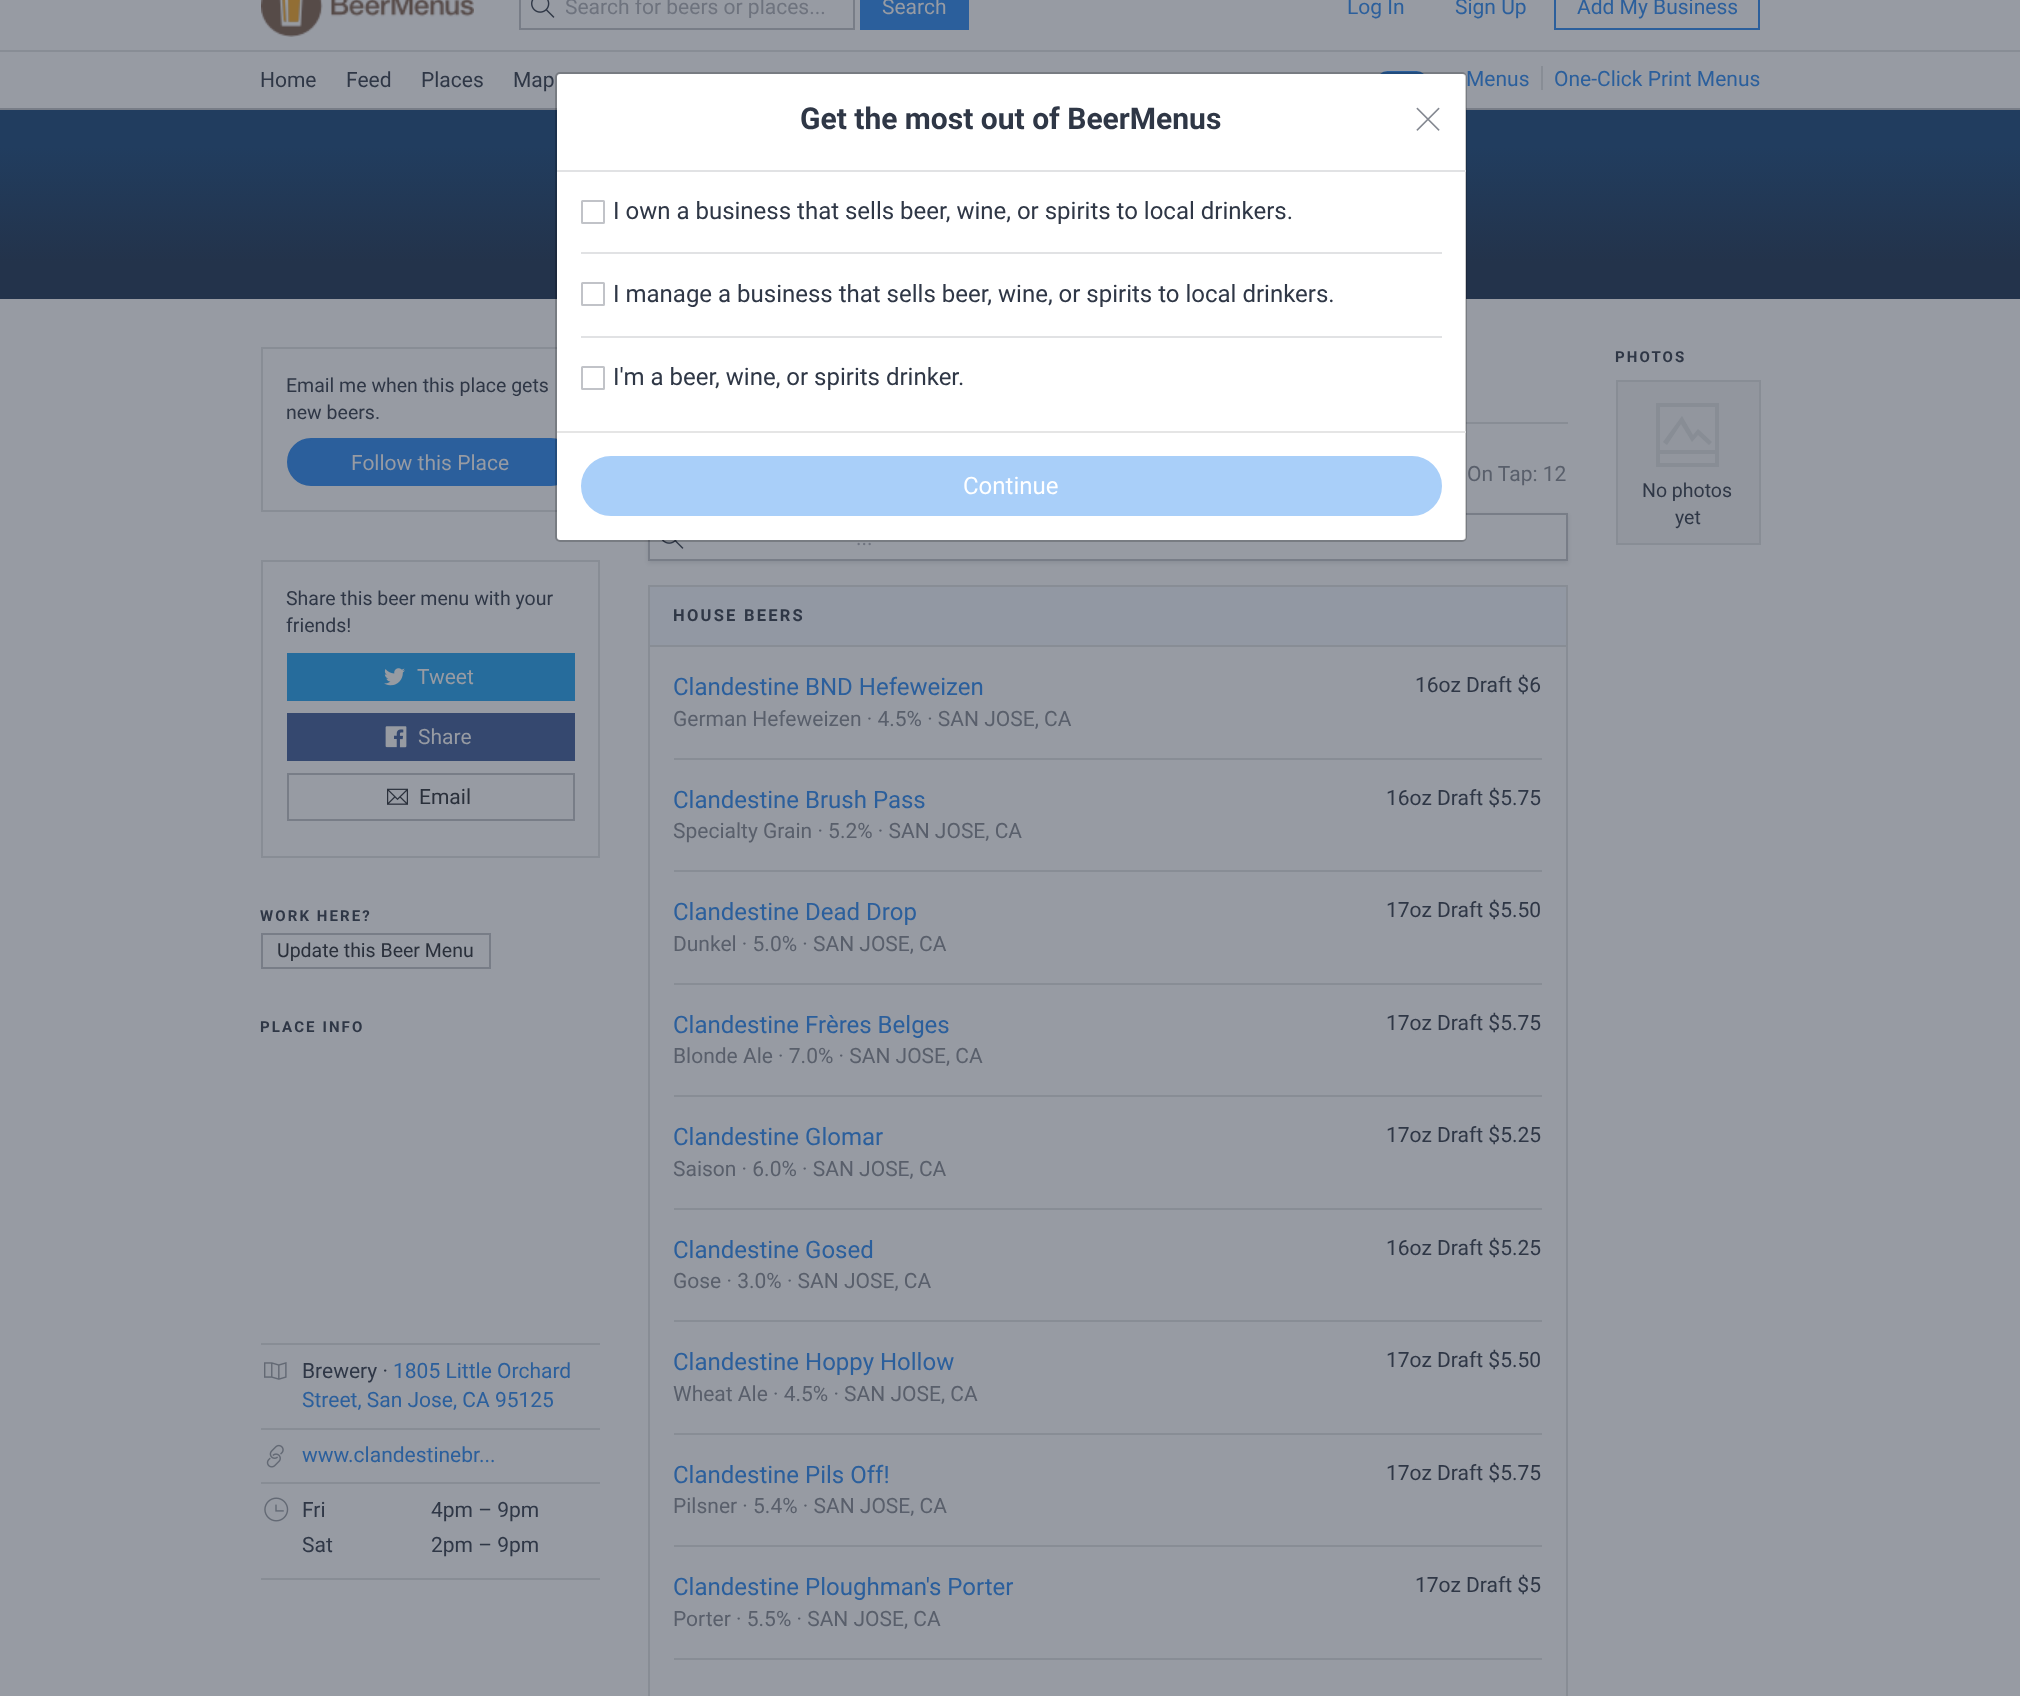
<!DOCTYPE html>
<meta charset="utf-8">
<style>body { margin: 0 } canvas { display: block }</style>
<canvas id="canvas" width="2020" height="1696"></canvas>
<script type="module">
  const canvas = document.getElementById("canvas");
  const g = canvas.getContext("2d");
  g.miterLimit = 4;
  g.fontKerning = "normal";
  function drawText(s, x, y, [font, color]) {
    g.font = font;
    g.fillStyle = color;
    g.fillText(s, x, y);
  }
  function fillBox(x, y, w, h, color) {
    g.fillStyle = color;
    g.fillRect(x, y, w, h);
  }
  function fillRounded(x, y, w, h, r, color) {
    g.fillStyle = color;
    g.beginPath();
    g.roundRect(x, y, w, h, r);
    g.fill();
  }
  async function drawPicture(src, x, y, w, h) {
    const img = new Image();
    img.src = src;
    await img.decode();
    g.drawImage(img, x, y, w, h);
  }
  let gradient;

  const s1 = ["21px Roboto", "#6E737E"];
  const s2 = ["21px Roboto", "#979BA3"];
  const s3 = ["21px Roboto", "#2B5F9C"];
  const s4 = ["21px Roboto", "#2F3746"];
  const s5 = ["bold 30px Roboto", "#2F3746"];
  const s6 = ["24px Roboto", "#2F3746"];
  const s7 = ["24px Roboto", "#FFFFFF"];
  const s8 = ["19.5px Roboto", "#2F3746"];
  const s9 = ["21px Roboto", "#2A303B"];
  const s10 = ["bold 15px Roboto", "#2F3746"];
  const s11 = ["19.5px Roboto", "#2A303B"];
  const s12 = ["21px Roboto", "#595F6B"];
  const s13 = ["bold 16.5px Roboto", "#2F3746"];
  const s14 = ["24px Roboto", "#2B5F9C"];

  fillBox(0, 0, 2020, 1696, "#979BA3");
  fillBox(0, 108, 2020, 2, "#787D87");
  await drawPicture("pic1.png", 261, 0, 213, 37);
  g.strokeStyle = "#787D87";
  g.lineWidth = 2;
  g.strokeRect(520, -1, 334, 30);
  await drawPicture("pic2.png", 531, 0, 24, 18);
  g.save();
  g.beginPath();
  g.rect(566, 0, 276, 18);
  g.clip();
  drawText("Search for beers or places...", 565, 14, s1);
  g.restore();
  fillBox(860, 0, 109, 30, "#2B5F9C");
  drawText("Search", 882, 14, s2);
  drawText("Log In", 1347, 14, s3);
  drawText("Sign Up", 1455, 14, s3);
  g.strokeStyle = "#2B5F9C";
  g.strokeRect(1555, -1, 204, 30);
  drawText("Add My Business", 1577, 14, s3);
  fillBox(0, 50, 2020, 2, "#888D95");
  drawText("Home", 260, 87, s4);
  drawText("Feed", 346, 87, s4);
  drawText("Places", 421, 87, s4);
  drawText("Map", 513, 87, s4);
  fillRounded(1377, 71, 50, 21, 10.5, "#2B5F9C");
  drawText("Menus", 1466, 86, s3);
  drawText("One-Click Print Menus", 1554, 86, s3);
  fillBox(1541, 66, 2, 24, "#888D95");
  gradient = g.createLinearGradient(1010, 109, 1010, 299);
  gradient.addColorStop(0.2, "#213D5F");
  gradient.addColorStop(0.8, "#23334B");
  g.fillStyle = gradient;
  g.fillRect(0, 110, 2020, 189);
  g.strokeStyle = "#888D95";
  g.strokeRect(262, 348, 337, 163);
  g.fillStyle = "#2B5F9C";
  g.beginPath();
  g.roundRect(288, 439, 286, 46, 23);
  g.fill();
  g.strokeStyle = "#2B5F9C";
  g.stroke();
  g.fillStyle = "rgba(24, 28, 35, 0.1)";
  g.filter = "blur(2px)";
  g.beginPath();
  g.rect(648, 515, 920, 48);
  g.fill();
  g.filter = "none";
  g.fillStyle = "#979BA3";
  g.beginPath();
  g.rect(649, 514, 918, 46);
  g.fill();
  g.strokeStyle = "#787D87";
  g.stroke();
  fillRounded(557, 74, 909, 466, 3, "#FFFFFF");
  fillBox(1466, 422, 102, 2, "#888D95");
  await drawPicture("pic10.png", 661, 540, 23, 9);
  g.beginPath();
  g.roundRect(556, 73, 910, 468, 4);
  g.strokeStyle = "rgba(0, 0, 0, 0.2)";
  g.stroke();
  fillBox(557, 170, 909, 2, "#E1E2E4");
  drawText("Get the most out of BeerMenus", 800, 129, s5);
  await drawPicture("pic3.png", 1416, 107, 24, 24);
  g.beginPath();
  g.roundRect(582, 201, 22, 22, 0.5);
  g.strokeStyle = "#C1C3C8";
  g.stroke();
  drawText("I own a business that sells beer, wine, or spirits to local drinkers.", 613, 219, s6);
  fillBox(581, 252, 861, 2, "#E1E2E4");
  g.beginPath();
  g.roundRect(582, 283, 22, 22, 0.5);
  g.stroke();
  drawText("I manage a business that sells beer, wine, or spirits to local drinkers.", 613, 302, s6);
  fillBox(581, 336, 861, 2, "#E1E2E4");
  g.beginPath();
  g.roundRect(582, 367, 22, 22, 0.5);
  g.stroke();
  drawText("I'm a beer, wine, or spirits drinker.", 613, 385, s6);
  fillBox(557, 431, 909, 2, "#E5E5E5");
  g.fillStyle = "#A9CFF9";
  g.beginPath();
  g.roundRect(582, 457, 859, 58, 29);
  g.fill();
  g.strokeStyle = "#A9CFF9";
  g.stroke();
  drawText("Continue", 963, 494, s7);
  drawText("Email me when this place gets", 286, 392, s8);
  drawText("new beers.", 286, 419, s8);
  drawText("Follow this Place", 351, 470, s2);
  g.strokeStyle = "#888D95";
  g.strokeRect(262, 561, 337, 296);
  drawText("Share this beer menu with your", 286, 605, s8);
  drawText("friends!", 286, 632, s8);
  fillBox(287, 653, 288, 48, "#266C9C");
  await drawPicture("pic4.png", 384, 668, 21, 18);
  drawText("Tweet", 417, 684, s2);
  fillBox(287, 713, 288, 48, "#35486F");
  await drawPicture("pic5.png", 385, 726, 22, 22);
  drawText("Share", 418, 744, s2);
  g.strokeStyle = "#787D87";
  g.strokeRect(288, 774, 286, 46);
  await drawPicture("pic6.png", 387, 788, 21, 17);
  drawText("Email", 419, 804, s9);
  g.letterSpacing = "2.1px";
  drawText("WORK HERE?", 260, 921, s10);
  g.strokeRect(262, 934, 228, 34);
  g.letterSpacing = "0px";
  drawText("Update this Beer Menu", 277, 957, s11);
  g.letterSpacing = "2.1px";
  drawText("PLACE INFO", 260, 1032, s10);
  fillBox(261, 1343, 339, 2, "#888D95");
  fillBox(261, 1578, 339, 2, "#888D95");
  await drawPicture("pic7.png", 264, 1362, 23, 18);
  g.letterSpacing = "0px";
  drawText("Brewery ·", 302, 1378, s4);
  drawText("1805 Little Orchard", 393, 1378, s3);
  drawText("Street, San Jose, CA 95125", 302, 1407, s3);
  fillBox(261, 1428, 339, 2, "#888D95");
  await drawPicture("pic8.png", 266, 1444, 18, 24);
  drawText("www.clandestinebr...", 302, 1462, s3);
  fillBox(261, 1482, 339, 2, "#888D95");
  await drawPicture("pic9.png", 264, 1497, 25, 25);
  drawText("Fri", 302, 1517, s4);
  drawText("4pm – 9pm", 431, 1517, s4);
  drawText("Sat", 302, 1552, s4);
  drawText("2pm – 9pm", 431, 1552, s4);
  drawText("On Tap: 12", 1467, 481, s12);
  drawText("...", 856, 545, s1);
  g.strokeStyle = "#888D95";
  g.strokeRect(649, 586, 918, 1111);
  fillBox(650, 587, 916, 58, "#9298A3");
  fillBox(650, 645, 916, 2, "#888D95");
  g.letterSpacing = "2.25px";
  drawText("HOUSE BEERS", 673, 621, s13);
  g.letterSpacing = "0px";
  drawText("Clandestine BND Hefeweizen", 673, 695, s14);
  drawText("German Hefeweizen · 4.5% · SAN JOSE, CA", 673, 726, s12);
  drawText("16oz Draft $6", 1415, 692, s4);
  fillBox(674, 758, 868, 2, "#888D95");
  drawText("Clandestine Brush Pass", 673, 808, s14);
  drawText("Specialty Grain · 5.2% · SAN JOSE, CA", 673, 838, s12);
  drawText("16oz Draft $5.75", 1386, 805, s4);
  fillBox(674, 870, 868, 2, "#888D95");
  drawText("Clandestine Dead Drop", 673, 920, s14);
  drawText("Dunkel · 5.0% · SAN JOSE, CA", 673, 951, s12);
  drawText("17oz Draft $5.50", 1386, 917, s4);
  fillBox(674, 983, 868, 2, "#888D95");
  drawText("Clandestine Frères Belges", 673, 1033, s14);
  drawText("Blonde Ale · 7.0% · SAN JOSE, CA", 673, 1063, s12);
  drawText("17oz Draft $5.75", 1386, 1030, s4);
  fillBox(674, 1095, 868, 2, "#888D95");
  drawText("Clandestine Glomar", 673, 1145, s14);
  drawText("Saison · 6.0% · SAN JOSE, CA", 673, 1176, s12);
  drawText("17oz Draft $5.25", 1386, 1142, s4);
  fillBox(674, 1208, 868, 2, "#888D95");
  drawText("Clandestine Gosed", 673, 1258, s14);
  drawText("Gose · 3.0% · SAN JOSE, CA", 673, 1288, s12);
  drawText("16oz Draft $5.25", 1386, 1255, s4);
  fillBox(674, 1320, 868, 2, "#888D95");
  drawText("Clandestine Hoppy Hollow", 673, 1370, s14);
  drawText("Wheat Ale · 4.5% · SAN JOSE, CA", 673, 1401, s12);
  drawText("17oz Draft $5.50", 1386, 1367, s4);
  fillBox(674, 1433, 868, 2, "#888D95");
  drawText("Clandestine Pils Off!", 673, 1483, s14);
  drawText("Pilsner · 5.4% · SAN JOSE, CA", 673, 1513, s12);
  drawText("17oz Draft $5.75", 1386, 1480, s4);
  fillBox(674, 1545, 868, 2, "#888D95");
  drawText("Clandestine Ploughman's Porter", 673, 1595, s14);
  drawText("Porter · 5.5% · SAN JOSE, CA", 673, 1626, s12);
  drawText("17oz Draft $5", 1415, 1592, s4);
  fillBox(674, 1658, 868, 2, "#888D95");
  g.letterSpacing = "2.1px";
  drawText("PHOTOS", 1615, 362, s10);
  g.fillStyle = "#92969E";
  g.beginPath();
  g.rect(1617, 381, 143, 163);
  g.fill();
  g.stroke();
  g.fillStyle = "#888D95";
  g.beginPath();
  g.moveTo(1656, 403);
  g.lineTo(1656, 467);
  g.lineTo(1719, 467);
  g.lineTo(1719, 403);
  g.closePath();
  g.moveTo(1715, 463);
  g.lineTo(1660, 463);
  g.lineTo(1660, 454);
  g.lineTo(1715, 454);
  g.closePath();
  g.moveTo(1660, 450);
  g.lineTo(1660, 407);
  g.lineTo(1715, 407);
  g.lineTo(1715, 450);
  g.closePath();
  g.moveTo(1712, 442);
  g.lineTo(1709, 445);
  g.lineTo(1698, 435);
  g.lineTo(1692, 442);
  g.lineTo(1681, 424);
  g.lineTo(1667, 445);
  g.lineTo(1663, 442);
  g.lineTo(1682, 416);
  g.lineTo(1693, 435);
  g.lineTo(1698, 429);
  g.closePath();
  g.fill();
  g.letterSpacing = "0px";
  drawText("No photos", 1642, 497, s8);
  drawText("yet", 1675, 524, s8);
</script>
